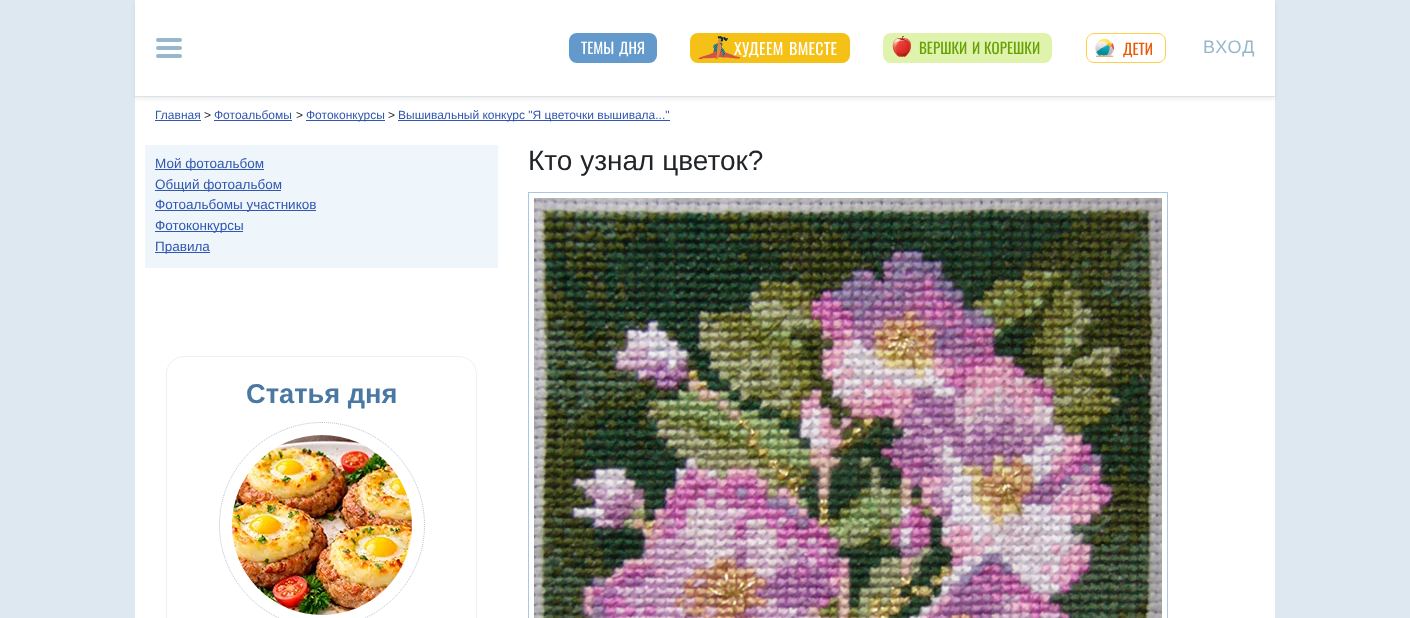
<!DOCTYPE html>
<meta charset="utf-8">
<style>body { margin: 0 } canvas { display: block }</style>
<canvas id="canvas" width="1410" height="618"></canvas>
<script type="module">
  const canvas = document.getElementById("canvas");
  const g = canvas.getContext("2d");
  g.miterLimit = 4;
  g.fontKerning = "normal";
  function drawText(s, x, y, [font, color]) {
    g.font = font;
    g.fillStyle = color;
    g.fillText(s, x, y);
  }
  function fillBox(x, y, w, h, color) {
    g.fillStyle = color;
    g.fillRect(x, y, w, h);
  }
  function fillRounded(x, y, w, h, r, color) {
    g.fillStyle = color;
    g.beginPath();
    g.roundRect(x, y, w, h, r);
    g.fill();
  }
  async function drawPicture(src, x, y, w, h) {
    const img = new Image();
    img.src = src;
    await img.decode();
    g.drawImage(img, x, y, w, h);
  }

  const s1 = ["15px Oswald", "#FFFFFF"];
  const s2 = ["16px Oswald", "#FFFFFF"];
  const s3 = ["15px Oswald", "#66A206"];
  const s4 = ["15px Oswald", "#EA5A06"];
  const s5 = ["18px Liberation Sans", "#96B7CC"];
  const s6 = ["12px Liberation Sans", "#3157B0"];
  const s7 = ["12px Liberation Sans", "#212529"];
  const s8 = ["13.5px Liberation Sans", "#3157B0"];
  const s9 = ["bold 27.25px Liberation Sans", "#4A78A3"];
  const s10 = ["28px Liberation Sans", "#212529"];

  fillBox(0, 0, 1410, 618, "#DEE8F1");
  fillBox(135, 97, 1140, 521, "#FFFFFF");
  g.fillStyle = "rgba(0, 0, 0, 0.07)";
  g.filter = "blur(2px)";
  g.beginPath();
  g.rect(135, 2, 1140, 97);
  g.fill();
  g.filter = "none";
  fillBox(135, 0, 1140, 96, "#FFFFFF");
  fillBox(135, 96, 1140, 1, "#DEE2E6");
  g.beginPath();
  g.moveTo(158, 40);
  g.lineTo(180, 40);
  g.moveTo(158, 48);
  g.lineTo(180, 48);
  g.moveTo(158, 56);
  g.lineTo(180, 56);
  g.strokeStyle = "#96B7CC";
  g.lineWidth = 4;
  g.lineCap = "round";
  g.stroke();
  fillRounded(569, 33, 88, 30, 8, "#6399CB");
  drawText("ТЕМЫ", 581, 54, s1);
  drawText("ДНЯ", 619, 54, s1);
  fillRounded(690, 33, 160, 30, 8, "#F6C117");
  g.letterSpacing = "0.25px";
  drawText("ХУДЕЕМ", 734, 55, s2);
  await drawPicture("pic1.png", 698, 36, 42, 24);
  drawText("ВМЕСТЕ", 789, 55, s2);
  fillRounded(883, 33, 169, 30, 8, "#E0F3AD");
  await drawPicture("pic2.png", 892, 36, 19, 21);
  g.letterSpacing = "0px";
  drawText("ВЕРШКИ", 919, 54, s3);
  drawText("И", 972, 54, s3);
  drawText("КОРЕШКИ", 984, 54, s3);
  g.beginPath();
  g.roundRect(1086.5, 33.5, 79, 29, 7.5);
  g.strokeStyle = "#FFCF4C";
  g.lineWidth = 1;
  g.stroke();
  await drawPicture("pic3.png", 1095, 39, 19, 18);
  drawText("ДЕТИ", 1123, 55, s4);
  g.letterSpacing = "1px";
  drawText("ВХОД", 1203, 53, s5);
  g.letterSpacing = "0px";
  drawText("Главная", 155, 119, s6);
  fillBox(155, 120, 46, 1, "#3157B0");
  drawText(">", 204, 119, s7);
  drawText("Фотоальбомы", 214, 119, s6);
  fillBox(214, 120, 78, 1, "#3157B0");
  drawText(">", 296, 119, s7);
  fillBox(306, 120, 79, 1, "#3157B0");
  drawText("Фотоконкурсы", 306, 119, s6);
  drawText(">", 388, 119, s7);
  fillBox(398, 120, 272, 1, "#3157B0");
  drawText("Вышивальный конкурс \"Я цветочки вышивала...\"", 398, 119, s6);
  fillBox(145, 145, 353, 123, "#EEF5FB");
  fillBox(155, 169, 109, 1, "#3157B0");
  drawText("Мой фотоальбом", 155, 168, s8);
  fillBox(155, 190, 126, 1, "#3157B0");
  drawText("Общий фотоальбом", 155, 189, s8);
  fillBox(155, 210, 161, 1, "#3157B0");
  drawText("Фотоальбомы участников", 155, 209, s8);
  fillBox(155, 231, 88, 1, "#3157B0");
  drawText("Фотоконкурсы", 155, 230, s8);
  fillBox(155, 252, 55, 1, "#3157B0");
  drawText("Правила", 155, 251, s8);
  g.beginPath();
  g.roundRect(166.5, 356.5, 310, 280, 17.5);
  g.strokeStyle = "#EFEFEF";
  g.stroke();
  drawText("Статья дня", 246, 403, s9);
  g.beginPath();
  g.moveTo(322, 422.5);
  g.bezierCurveTo(378.5, 422.5, 424.5, 468.5, 424.5, 525);
  g.bezierCurveTo(424.5, 581.5, 378.5, 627.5, 322, 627.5);
  g.bezierCurveTo(265.5, 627.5, 219.5, 581.5, 219.5, 525);
  g.bezierCurveTo(219.5, 468.5, 265.5, 422.5, 322, 422.5);
  g.closePath();
  g.strokeStyle = "#B4C5D6";
  g.lineCap = "butt";
  g.setLineDash([1, 1]);
  g.stroke();
  await drawPicture("pic4.png", 232, 435, 180, 180);
  drawText("Кто узнал цветок?", 528, 170, s10);
  g.strokeStyle = "#A9C7E4";
  g.setLineDash([]);
  g.strokeRect(528.5, 192.5, 639, 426);
  await drawPicture("pic5.png", 534, 198, 628, 420);
</script>
